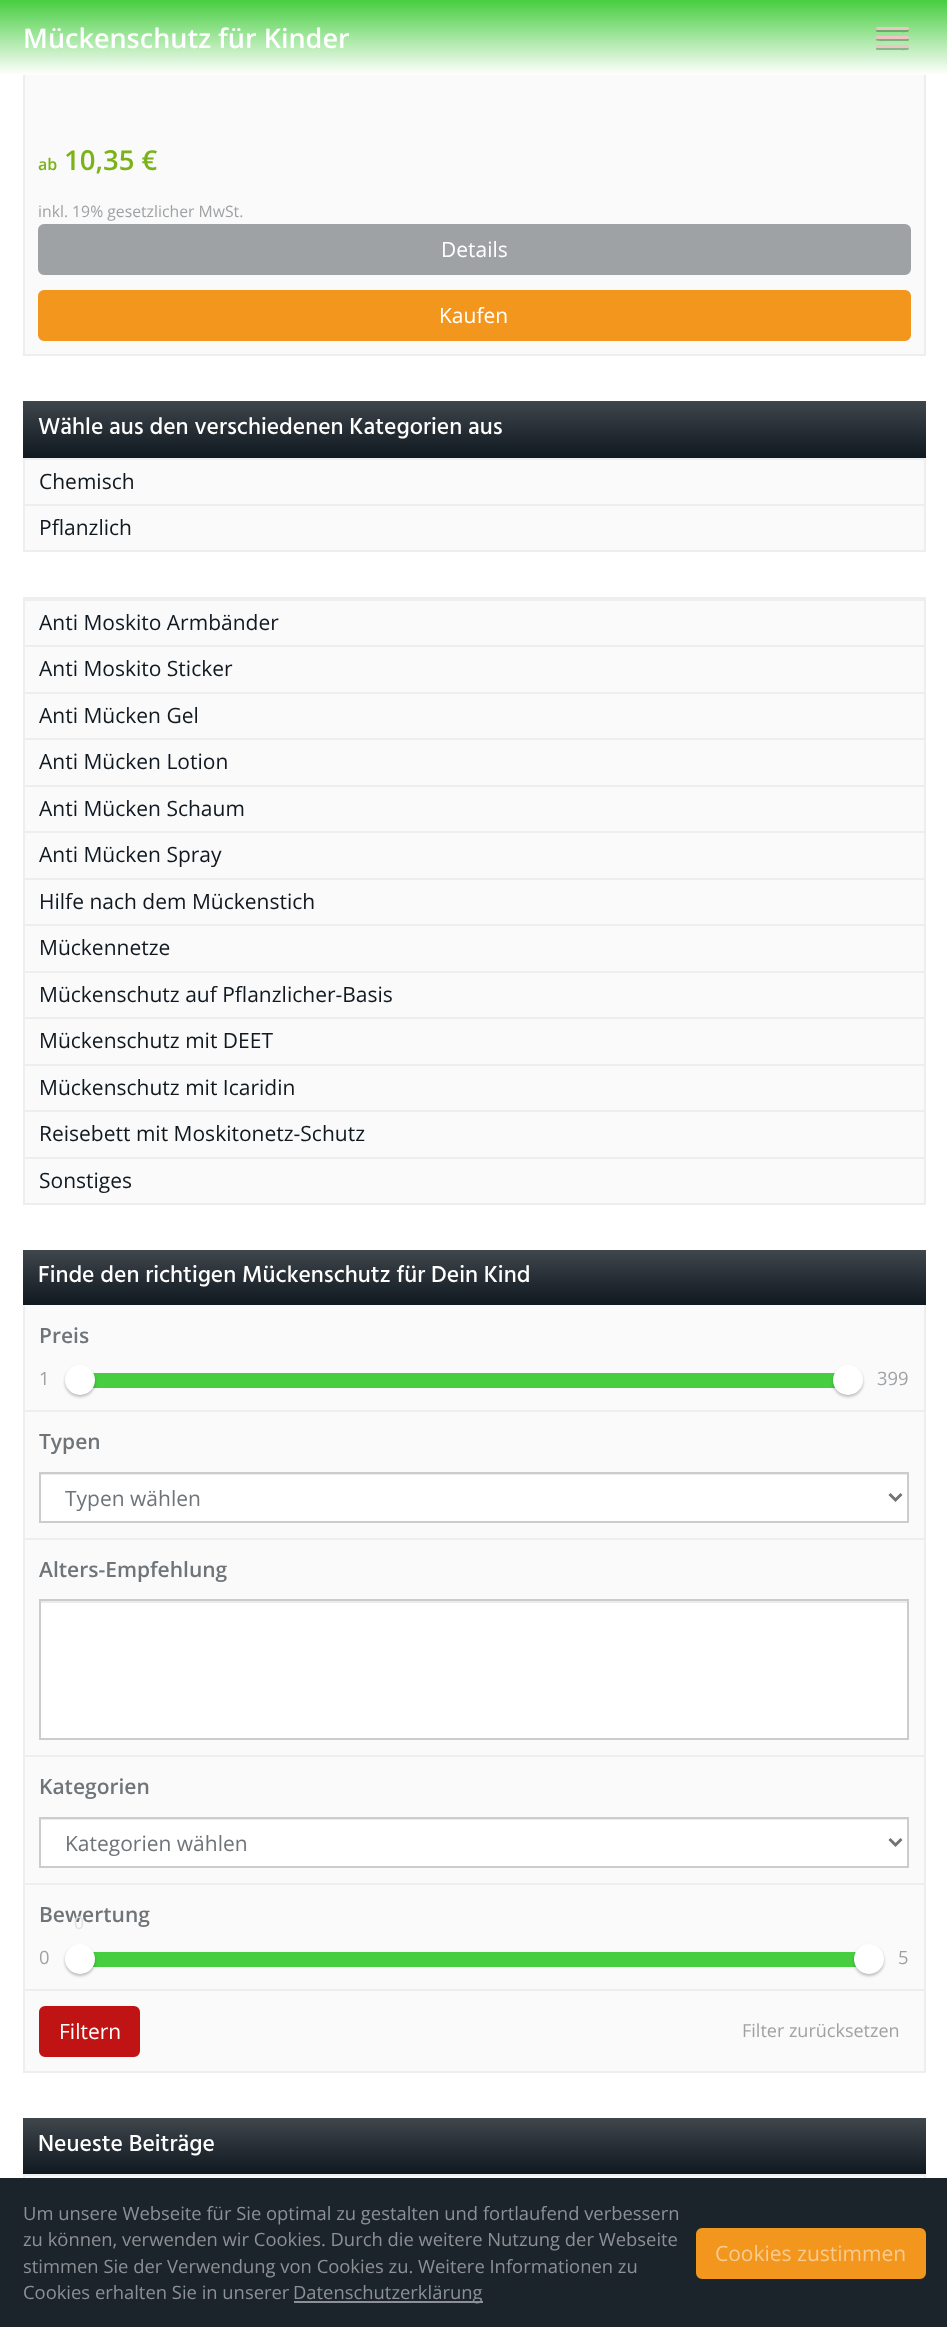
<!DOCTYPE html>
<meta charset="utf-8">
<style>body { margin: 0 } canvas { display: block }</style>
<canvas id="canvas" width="947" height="2327"></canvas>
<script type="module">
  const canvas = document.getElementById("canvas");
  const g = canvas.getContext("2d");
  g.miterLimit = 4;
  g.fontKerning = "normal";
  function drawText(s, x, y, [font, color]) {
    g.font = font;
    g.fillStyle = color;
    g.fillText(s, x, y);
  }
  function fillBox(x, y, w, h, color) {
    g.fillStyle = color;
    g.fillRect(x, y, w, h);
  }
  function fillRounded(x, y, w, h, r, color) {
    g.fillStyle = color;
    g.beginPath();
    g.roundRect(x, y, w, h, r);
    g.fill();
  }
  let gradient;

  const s1 = ["600 27px Open Sans", "#FFFFFF"];
  const s2 = ["600 16px Open Sans", "#7AB317"];
  const s3 = ["600 27.5px Open Sans", "#7AB317"];
  const s4 = ["15.75px Open Sans", "#9FA2A5"];
  const s5 = ["21px Open Sans", "#FFFFFF"];
  const s6 = ["500 23.6px Hind", "#FFFFFF"];
  const s7 = ["21px Open Sans", "#101820"];
  const s8 = ["600 21px Open Sans", "#6F7479"];
  const s9 = ["18.4px Open Sans", "#9FA2A5"];
  const s10 = ["21px Open Sans", "#6F7479"];
  const s11 = ["18px Liberation Sans", "#E2E3E4"];
  const s12 = ["18px Open Sans", "#9FA2A5"];
  const s13 = ["18.4px Open Sans", "#8D9195"];
  const s14 = ["21px Open Sans", "#F9CB8E"];

  fillBox(0, 0, 947, 2327, "#FFFFFF");
  fillBox(25, 75, 899, 279, "#FAFAFA");
  g.strokeStyle = "#EEEEEE";
  g.lineWidth = 2;
  g.strokeRect(24, -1, 901, 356);
  gradient = g.createLinearGradient(474, 0, 474, 75);
  gradient.addColorStop(0, "#47CE40");
  gradient.addColorStop(1, "#FFFFFF");
  g.fillStyle = gradient;
  g.fillRect(0, 0, 947, 75);
  drawText("Mückenschutz für Kinder", 23, 48, s1);
  g.fillStyle = "#6EAA6B";
  g.beginPath();
  g.moveTo(876.5, 29.5);
  g.bezierCurveTo(875.5, 30.5, 876, 31.5, 877, 32);
  g.lineTo(897.5, 32);
  g.bezierCurveTo(899, 32, 907.5, 32.5, 908.5, 31.5);
  g.bezierCurveTo(909, 31, 909, 30, 908.5, 29.5);
  g.lineTo(907.5, 30);
  g.lineTo(877.5, 30);
  g.closePath();
  g.fill();
  fillRounded(876, 27, 33, 3, 1.5, "#EFC4C4");
  g.fillStyle = "#7FAE7C";
  g.beginPath();
  g.moveTo(876.5, 38.5);
  g.bezierCurveTo(876, 39, 876, 40, 876.5, 40.5);
  g.bezierCurveTo(877.5, 41.5, 886, 41, 887.5, 41);
  g.lineTo(908, 41);
  g.bezierCurveTo(909, 40.5, 909.5, 39.5, 908.5, 38.5);
  g.lineTo(907.5, 39);
  g.lineTo(877.5, 39);
  g.closePath();
  g.fill();
  fillRounded(876, 36, 33, 3, 1.5, "#EFC4C4");
  g.fillStyle = "#8FB38E";
  g.beginPath();
  g.moveTo(876.5, 47.5);
  g.bezierCurveTo(875.5, 48.5, 876, 49.5, 877, 50);
  g.lineTo(897.5, 50);
  g.bezierCurveTo(899, 50, 907.5, 50.5, 908.5, 49.5);
  g.bezierCurveTo(909, 49, 909, 48, 908.5, 47.5);
  g.lineTo(907.5, 48);
  g.lineTo(877.5, 48);
  g.closePath();
  g.fill();
  fillRounded(876, 45, 33, 3, 1.5, "#EFC4C4");
  drawText("ab", 38, 170, s2);
  drawText("10,35 €", 64, 170, s3);
  drawText("inkl. 19% gesetzlicher MwSt.", 38, 217, s4);
  g.beginPath();
  g.roundRect(39, 225, 871, 49, 5);
  g.fill();
  g.strokeStyle = "#9FA2A5";
  g.stroke();
  drawText("Details", 441, 257, s5);
  g.fillStyle = "#F3961D";
  g.beginPath();
  g.roundRect(39, 291, 871, 49, 5);
  g.fill();
  g.strokeStyle = "#F3961D";
  g.stroke();
  drawText("Kaufen", 439, 323, s5);
  fillBox(25, 460, 899, 90, "#FAFAFA");
  g.strokeStyle = "#EEEEEE";
  g.strokeRect(24, 402, 901, 149);
  gradient = g.createLinearGradient(474, 400, 474, 458);
  gradient.addColorStop(0, "#3F464C");
  gradient.addColorStop(1, "#101820");
  g.fillStyle = gradient;
  g.fillRect(23, 401, 903, 57);
  drawText("Wähle aus den verschiedenen Kategorien aus", 38, 434, s6);
  fillBox(24, 458, 900, 2, "#EEEEEE");
  drawText("Chemisch", 39, 489, s7);
  fillBox(24, 504, 900, 2, "#EEEEEE");
  drawText("Pflanzlich", 39, 535, s7);
  fillBox(25, 601, 899, 602, "#FAFAFA");
  g.strokeRect(24, 598, 901, 606);
  fillBox(24, 599, 900, 2, "#EEEEEE");
  drawText("Anti Moskito Armbänder", 39, 630, s7);
  fillBox(24, 645, 900, 2, "#EEEEEE");
  drawText("Anti Moskito Sticker", 39, 676, s7);
  fillBox(24, 692, 900, 2, "#EEEEEE");
  drawText("Anti Mücken Gel", 39, 723, s7);
  fillBox(24, 738, 900, 2, "#EEEEEE");
  drawText("Anti Mücken Lotion", 39, 769, s7);
  fillBox(24, 785, 900, 2, "#EEEEEE");
  drawText("Anti Mücken Schaum", 39, 816, s7);
  fillBox(24, 831, 900, 2, "#EEEEEE");
  drawText("Anti Mücken Spray", 39, 862, s7);
  fillBox(24, 878, 900, 2, "#EEEEEE");
  drawText("Hilfe nach dem Mückenstich", 39, 909, s7);
  fillBox(24, 924, 900, 2, "#EEEEEE");
  drawText("Mückennetze", 39, 955, s7);
  fillBox(24, 971, 900, 2, "#EEEEEE");
  drawText("Mückenschutz auf Pflanzlicher-Basis", 39, 1002, s7);
  fillBox(24, 1017, 900, 2, "#EEEEEE");
  drawText("Mückenschutz mit DEET", 39, 1048, s7);
  fillBox(24, 1064, 900, 2, "#EEEEEE");
  drawText("Mückenschutz mit Icaridin", 39, 1095, s7);
  fillBox(24, 1110, 900, 2, "#EEEEEE");
  drawText("Reisebett mit Moskitonetz-Schutz", 39, 1141, s7);
  fillBox(24, 1157, 900, 2, "#EEEEEE");
  drawText("Sonstiges", 39, 1188, s7);
  fillBox(25, 1305, 899, 766, "#FAFAFA");
  g.strokeRect(24, 1251, 901, 821);
  gradient = g.createLinearGradient(474, 1250, 474, 1305);
  gradient.addColorStop(0, "#3F464C");
  gradient.addColorStop(1, "#101820");
  g.fillStyle = gradient;
  g.fillRect(23, 1250, 903, 55);
  drawText("Finde den richtigen Mückenschutz für Dein Kind", 38, 1282, s6);
  drawText("Preis", 39, 1343, s8);
  drawText("1", 39, 1385, s9);
  fillBox(92, 1373, 744, 15, "#47CE40");
  g.fillStyle = "rgba(0, 0, 0, 0.25)";
  g.filter = "blur(1.5px)";
  g.beginPath();
  g.roundRect(65, 1367, 30, 30, 15);
  g.fill();
  g.filter = "none";
  g.fillStyle = "#FFFFFF";
  g.beginPath();
  g.arc(80, 1380, 15, 0, Math.PI * 2);
  g.fill();
  g.fillStyle = "rgba(0, 0, 0, 0.25)";
  g.filter = "blur(1.5px)";
  g.beginPath();
  g.roundRect(833, 1367, 30, 30, 15);
  g.fill();
  g.filter = "none";
  g.fillStyle = "#FFFFFF";
  g.beginPath();
  g.arc(848, 1380, 15, 0, Math.PI * 2);
  g.fill();
  drawText("399", 877, 1385, s9);
  fillBox(24, 1410, 900, 2, "#EEEEEE");
  drawText("Typen", 39, 1449, s8);
  fillBox(41, 1475, 866, 46, "#FFFFFF");
  fillBox(41, 1474, 867, 1, "#ECECEC");
  g.strokeStyle = "#CCCCCC";
  g.strokeRect(40, 1473, 868, 49);
  g.beginPath();
  g.moveTo(889.5, 1494);
  g.lineTo(895.5, 1500);
  g.lineTo(901.5, 1494);
  g.strokeStyle = "#6F7479";
  g.lineWidth = 3;
  g.stroke();
  drawText("Typen wählen", 65, 1506, s10);
  fillBox(24, 1538, 900, 2, "#EEEEEE");
  drawText("Alters-Empfehlung", 39, 1577, s8);
  fillBox(41, 1603, 866, 135, "#FFFFFF");
  fillBox(41, 1601, 867, 2, "#ECECEC");
  g.strokeStyle = "#CCCCCC";
  g.lineWidth = 2;
  g.strokeRect(40, 1600, 868, 139);
  fillBox(24, 1755, 900, 2, "#EEEEEE");
  drawText("Kategorien", 39, 1794, s8);
  fillBox(41, 1820, 866, 46, "#FFFFFF");
  fillBox(41, 1819, 867, 1, "#ECECEC");
  g.strokeRect(40, 1818, 868, 49);
  g.beginPath();
  g.moveTo(889.5, 1839);
  g.lineTo(895.5, 1845);
  g.lineTo(901.5, 1839);
  g.strokeStyle = "#6F7479";
  g.lineWidth = 3;
  g.stroke();
  drawText("Kategorien wählen", 65, 1851, s10);
  fillBox(24, 1883, 900, 2, "#EEEEEE");
  drawText("Bewertung", 39, 1922, s8);
  drawText("0", 74, 1929, s11);
  fillBox(92, 1952, 765, 15, "#47CE40");
  g.fillStyle = "rgba(0, 0, 0, 0.25)";
  g.filter = "blur(1.5px)";
  g.beginPath();
  g.roundRect(65, 1946, 30, 30, 15);
  g.fill();
  g.filter = "none";
  g.fillStyle = "#FFFFFF";
  g.beginPath();
  g.arc(80, 1959, 15, 0, Math.PI * 2);
  g.fill();
  g.fillStyle = "rgba(0, 0, 0, 0.25)";
  g.filter = "blur(1.5px)";
  g.beginPath();
  g.roundRect(854, 1946, 30, 30, 15);
  g.fill();
  g.filter = "none";
  g.fillStyle = "#FFFFFF";
  g.beginPath();
  g.arc(869, 1959, 15, 0, Math.PI * 2);
  g.fill();
  drawText("0", 39, 1964, s9);
  drawText("5", 898, 1964, s9);
  fillBox(24, 1989, 900, 2, "#EEEEEE");
  g.fillStyle = "#C01313";
  g.beginPath();
  g.roundRect(40, 2007, 99, 49, 5);
  g.fill();
  g.strokeStyle = "#C01313";
  g.lineWidth = 2;
  g.stroke();
  drawText("Filtern", 59, 2039, s5);
  drawText("Filter zurücksetzen", 742, 2037, s12);
  fillBox(25, 2176, 899, 137, "#FAFAFA");
  g.strokeStyle = "#EEEEEE";
  g.strokeRect(24, 2119, 901, 195);
  gradient = g.createLinearGradient(474, 2118, 474, 2174);
  gradient.addColorStop(0, "#3F464C");
  gradient.addColorStop(1, "#101820");
  g.fillStyle = gradient;
  g.fillRect(23, 2118, 903, 56);
  drawText("Neueste Beiträge", 38, 2151, s6);
  fillBox(24, 2174, 900, 2, "#EEEEEE");
  fillBox(24, 2220, 900, 2, "#EEEEEE");
  fillBox(24, 2267, 672, 2, "#EEEEEE");
  fillBox(0, 2178, 947, 149, "rgba(16, 24, 32, 0.95)");
  drawText("Um unsere Webseite für Sie optimal zu gestalten und fortlaufend verbessern", 23, 2220, s13);
  drawText("zu können, verwenden wir Cookies. Durch die weitere Nutzung der Webseite", 23, 2246, s13);
  drawText("stimmen Sie der Verwendung von Cookies zu. Weitere Informationen zu", 23, 2273, s13);
  drawText("Cookies erhalten Sie in unserer", 23, 2299, s13);
  fillBox(294, 2301, 189, 2, "#8D9195");
  drawText("Datenschutzerklärung", 293, 2299, s13);
  g.fillStyle = "#F3961D";
  g.beginPath();
  g.roundRect(697, 2229, 228, 49, 5);
  g.fill();
  g.strokeStyle = "#F3961D";
  g.stroke();
  drawText("Cookies zustimmen", 715, 2261, s14);
</script>
